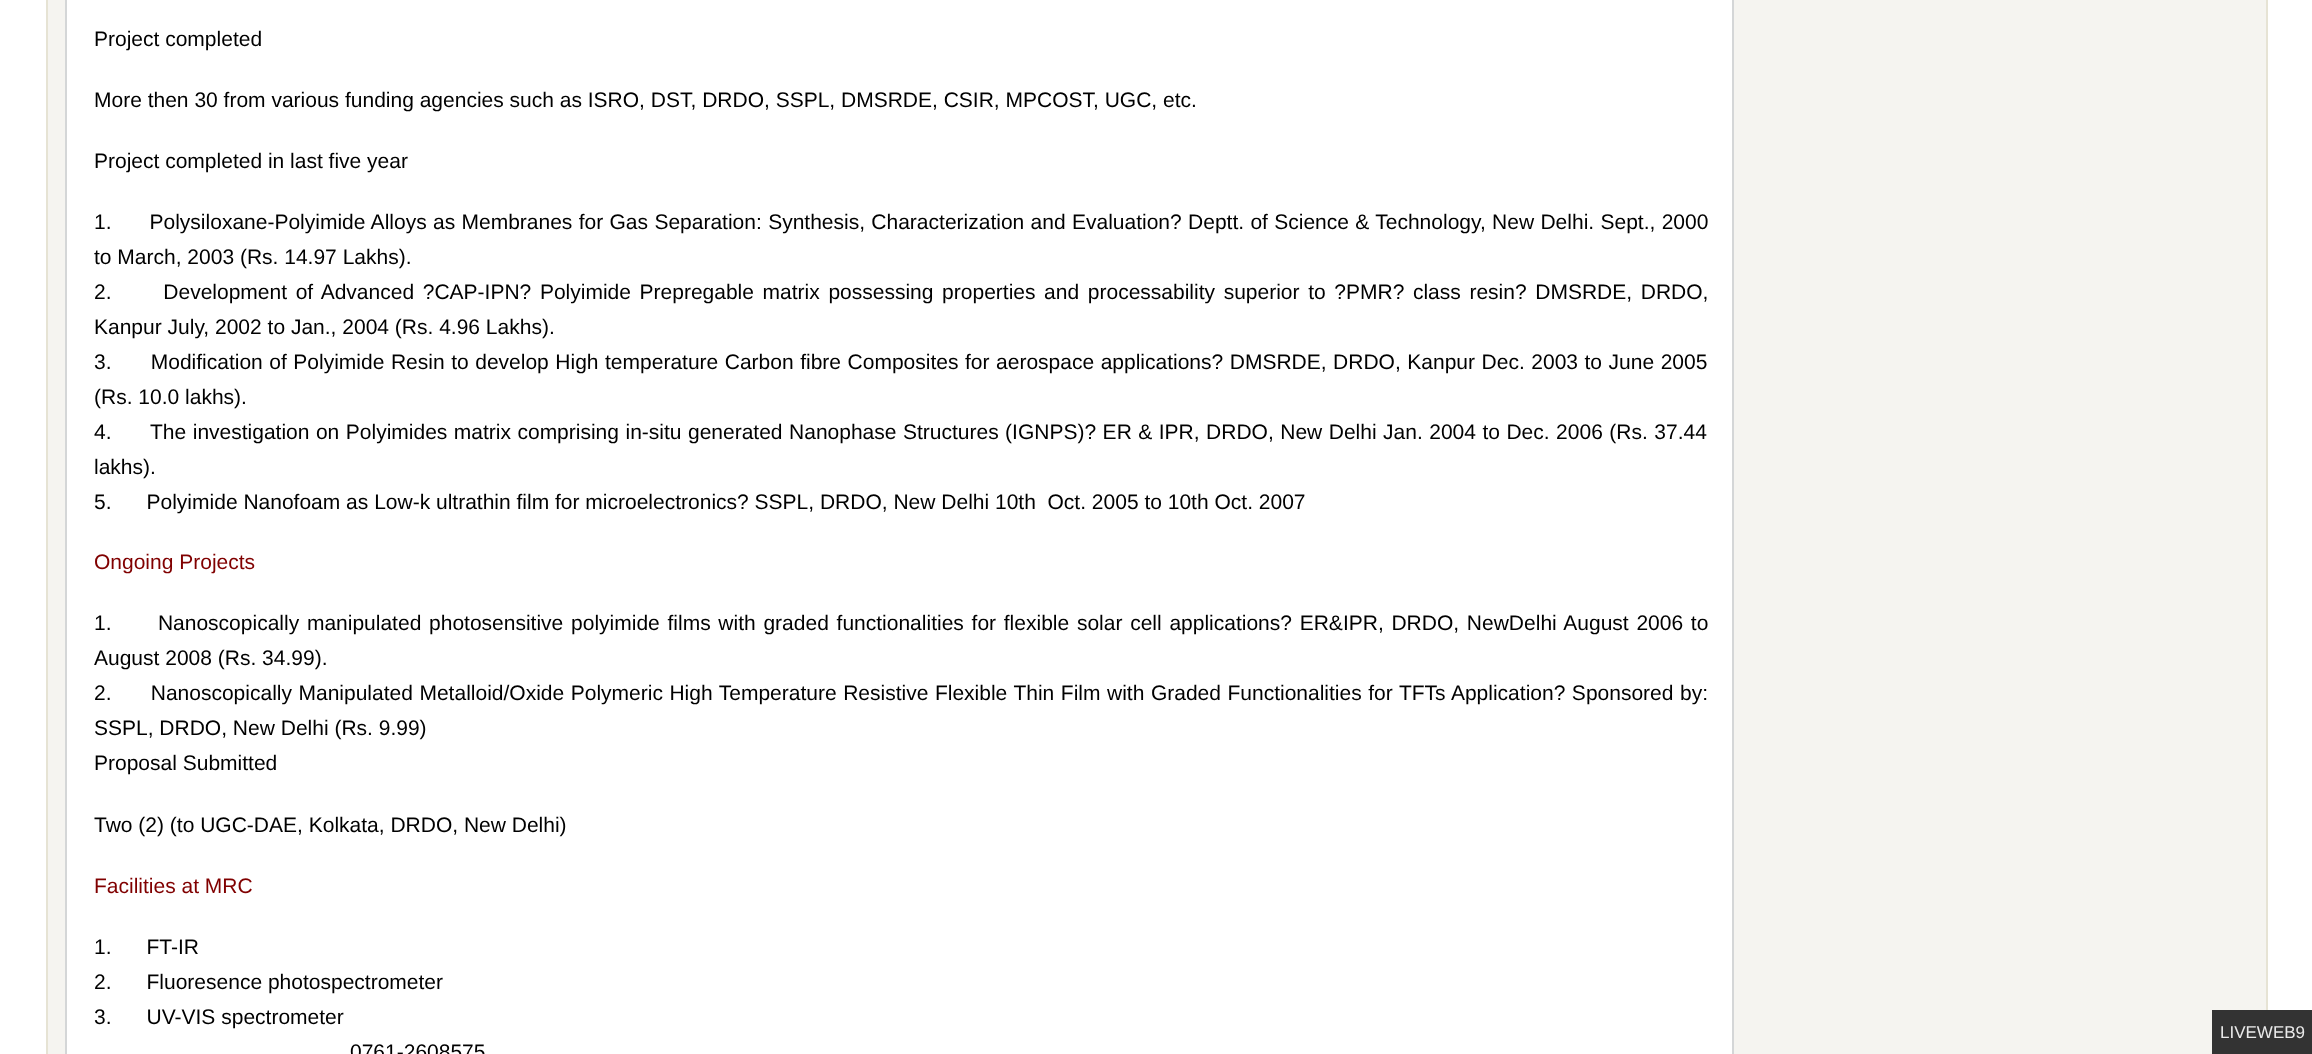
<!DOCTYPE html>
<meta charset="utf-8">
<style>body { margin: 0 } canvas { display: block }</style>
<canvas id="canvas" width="2312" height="1054"></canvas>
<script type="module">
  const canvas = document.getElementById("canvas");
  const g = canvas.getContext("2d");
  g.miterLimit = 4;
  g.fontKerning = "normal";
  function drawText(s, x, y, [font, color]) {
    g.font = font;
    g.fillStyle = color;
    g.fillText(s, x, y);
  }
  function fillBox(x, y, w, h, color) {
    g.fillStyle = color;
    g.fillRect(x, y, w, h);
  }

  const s1 = ["21px Liberation Sans", "#000000"];
  const s2 = ["21px Liberation Sans", "#800000"];
  const s3 = ["17px Liberation Sans", "#EAEAEA"];

  fillBox(0, 0, 2312, 1054, "#FFFFFF");
  g.fillStyle = "#F5F4F0";
  g.beginPath();
  g.rect(47, -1, 2220, 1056);
  g.fill();
  g.strokeStyle = "#E6E3D4";
  g.lineWidth = 2;
  g.stroke();
  g.fillStyle = "#FFFFFF";
  g.beginPath();
  g.rect(66, -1, 1667, 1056);
  g.fill();
  g.strokeStyle = "#D4D6D7";
  g.stroke();
  drawText("Project completed", 94, 46, s1);
  drawText("More then 30 from various funding agencies such as ISRO, DST, DRDO, SSPL, DMSRDE, CSIR, MPCOST, UGC, etc.", 94, 107, s1);
  drawText("Project completed in last five year", 94, 168, s1);
  g.wordSpacing = "0.5px";
  drawText("1.      Polysiloxane-Polyimide Alloys as Membranes for Gas Separation: Synthesis, Characterization and Evaluation? Deptt. of Science & Technology, New Delhi. Sept., 2000", 94, 229, s1);
  g.wordSpacing = "0px";
  drawText("to March, 2003 (Rs. 14.97 Lakhs).", 94, 264, s1);
  g.wordSpacing = "2.8px";
  drawText("2.      Development of Advanced ?CAP-IPN? Polyimide Prepregable matrix possessing properties and processability superior to ?PMR? class resin? DMSRDE, DRDO,", 94, 299, s1);
  g.wordSpacing = "0px";
  drawText("Kanpur July, 2002 to Jan., 2004 (Rs. 4.96 Lakhs).", 94, 334, s1);
  g.wordSpacing = "0.7px";
  drawText("3.      Modification of Polyimide Resin to develop High temperature Carbon fibre Composites for aerospace applications? DMSRDE, DRDO, Kanpur Dec. 2003 to June 2005", 94, 369, s1);
  g.wordSpacing = "0px";
  drawText("(Rs. 10.0 lakhs).", 94, 404, s1);
  g.wordSpacing = "0.65px";
  drawText("4.      The investigation on Polyimides matrix comprising in-situ generated Nanophase Structures (IGNPS)? ER & IPR, DRDO, New Delhi Jan. 2004 to Dec. 2006 (Rs. 37.44", 94, 439, s1);
  g.wordSpacing = "0px";
  drawText("lakhs).", 94, 474, s1);
  drawText("5.      Polyimide Nanofoam as Low-k ultrathin film for microelectronics? SSPL, DRDO, New Delhi 10th  Oct. 2005 to 10th Oct. 2007", 94, 509, s1);
  drawText("Ongoing Projects", 94, 569, s2);
  g.wordSpacing = "1.9px";
  drawText("1.      Nanoscopically manipulated photosensitive polyimide films with graded functionalities for flexible solar cell applications? ER&IPR, DRDO, NewDelhi August 2006 to", 94, 630, s1);
  g.wordSpacing = "0px";
  drawText("August 2008 (Rs. 34.99).", 94, 665, s1);
  g.wordSpacing = "0.7px";
  drawText("2.      Nanoscopically Manipulated Metalloid/Oxide Polymeric High Temperature Resistive Flexible Thin Film with Graded Functionalities for TFTs Application? Sponsored by:", 94, 700, s1);
  g.wordSpacing = "0px";
  drawText("SSPL, DRDO, New Delhi (Rs. 9.99)", 94, 735, s1);
  drawText("Proposal Submitted", 94, 770, s1);
  drawText("Two (2) (to UGC-DAE, Kolkata, DRDO, New Delhi)", 94, 832, s1);
  drawText("Facilities at MRC", 94, 893, s2);
  drawText("1.      FT-IR", 94, 954, s1);
  drawText("2.      Fluoresence photospectrometer", 94, 989, s1);
  drawText("3.      UV-VIS spectrometer", 94, 1024, s1);
  drawText("0761-2608575", 350, 1059, s1);
  fillBox(2212, 1010, 100, 44, "#333333");
  drawText("LIVEWEB9", 2220, 1038, s3);
</script>
